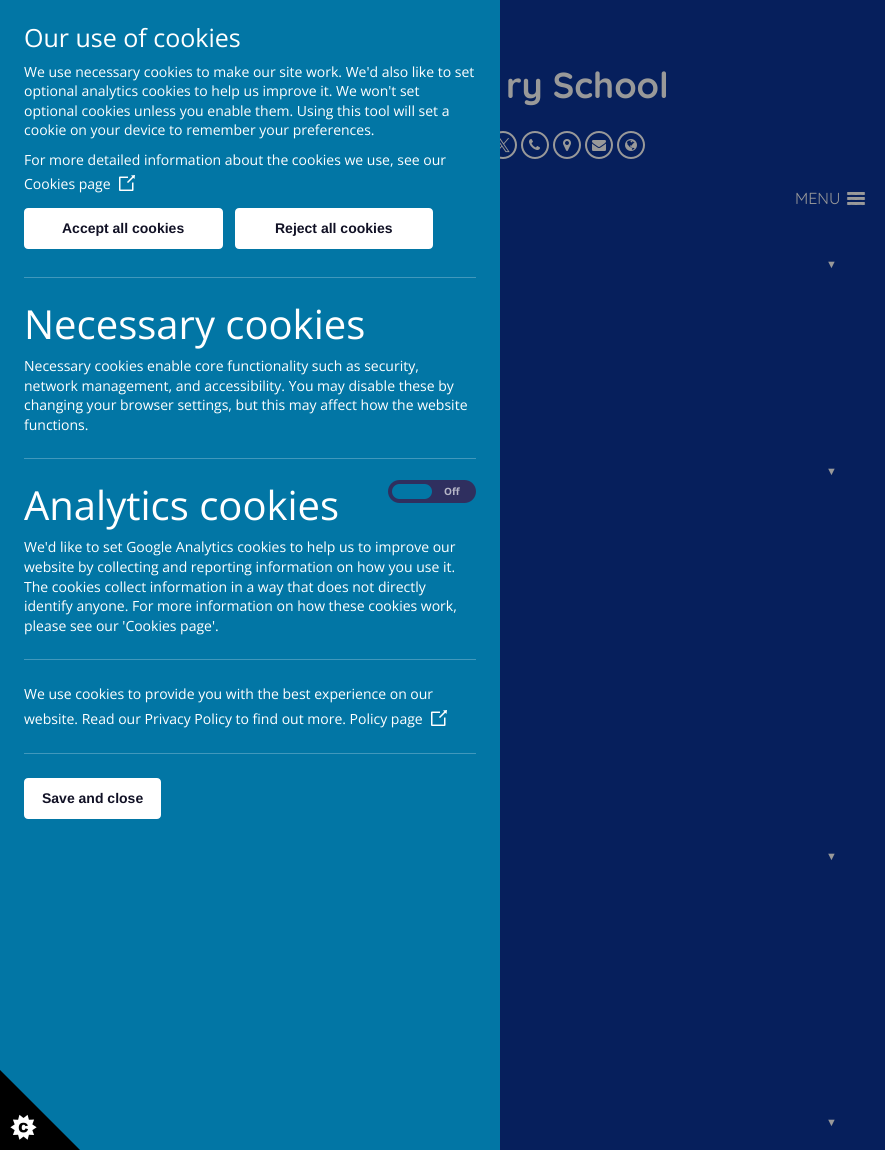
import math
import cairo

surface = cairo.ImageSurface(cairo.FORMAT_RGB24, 885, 1150)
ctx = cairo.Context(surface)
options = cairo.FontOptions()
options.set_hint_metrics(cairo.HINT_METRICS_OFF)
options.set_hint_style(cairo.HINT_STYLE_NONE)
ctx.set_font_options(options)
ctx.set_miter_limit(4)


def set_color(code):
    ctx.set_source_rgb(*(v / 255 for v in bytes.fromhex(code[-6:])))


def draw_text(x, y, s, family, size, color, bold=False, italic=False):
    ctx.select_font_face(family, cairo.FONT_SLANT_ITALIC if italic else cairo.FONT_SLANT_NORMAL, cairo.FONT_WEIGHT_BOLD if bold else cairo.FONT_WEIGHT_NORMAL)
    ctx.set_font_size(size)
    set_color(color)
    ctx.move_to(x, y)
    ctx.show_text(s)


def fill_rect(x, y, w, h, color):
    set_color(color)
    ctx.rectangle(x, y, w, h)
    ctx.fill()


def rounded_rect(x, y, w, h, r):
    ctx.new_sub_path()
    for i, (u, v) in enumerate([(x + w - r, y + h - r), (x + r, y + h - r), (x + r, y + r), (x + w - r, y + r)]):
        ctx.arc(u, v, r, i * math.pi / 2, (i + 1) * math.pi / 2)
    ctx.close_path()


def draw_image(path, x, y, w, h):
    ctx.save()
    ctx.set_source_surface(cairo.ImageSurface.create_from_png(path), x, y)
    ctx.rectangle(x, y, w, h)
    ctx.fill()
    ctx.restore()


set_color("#061f5c")
ctx.paint()
ctx.arc(503, 145, 13, 0, 2 * math.pi)
set_color("#999999")
ctx.stroke()
fill_rect(0, 0, 500, 1150, "#0276a5")
draw_text(24, 47, "Our use of cookies", "Open Sans", 25, "#ffffff")
draw_text(24, 77, "We use necessary cookies to make our site work. We'd also like to set", "Open Sans", 14, "#ffffff")
draw_text(24, 96, "optional analytics cookies to help us improve it. We won't set", "Open Sans", 14, "#ffffff")
draw_text(24, 116, "optional cookies unless you enable them. Using this tool will set a", "Open Sans", 14, "#ffffff")
draw_text(24, 135, "cookie on your device to remember your preferences.", "Open Sans", 14, "#ffffff")
draw_text(24, 165, "For more detailed information about the cookies we use, see our", "Open Sans", 14, "#ffffff")
draw_text(24, 189, "Cookies page", "Open Sans", 14, "#ffffff")
draw_image("assets/img1.png", 119, 175, 16, 16)
rounded_rect(25, 209, 197, 39, 3)
ctx.fill_preserve()
ctx.stroke()
draw_text(62, 233, "Accept all cookies", "Liberation Sans", 14, "#111125", bold=True)
set_color("#ffffff")
rounded_rect(236, 209, 196, 39, 3)
ctx.fill_preserve()
ctx.stroke()
draw_text(275, 233, "Reject all cookies", "Liberation Sans", 14, "#111125", bold=True)
fill_rect(24, 277, 452, 1, "#4198bc")
draw_text(24, 339, "Necessary cookies", "Open Sans", 40, "#ffffff")
draw_text(24, 371, "Necessary cookies enable core functionality such as security,", "Open Sans", 14, "#ffffff")
draw_text(24, 391, "network management, and accessibility. You may disable these by", "Open Sans", 14, "#ffffff")
draw_text(24, 410, "changing your browser settings, but this may affect how the website", "Open Sans", 14, "#ffffff")
draw_text(24, 430, "functions.", "Open Sans", 14, "#ffffff")
fill_rect(24, 458, 452, 1, "#4198bc")
draw_text(24, 520, "Analytics cookies", "Open Sans", 40, "#ffffff")
set_color("#2f2f5f")
rounded_rect(390, 482, 84, 19, 9.5)
ctx.fill_preserve()
ctx.set_line_width(4)
ctx.stroke()
set_color("#0276a5")
rounded_rect(392, 484, 40, 15, 7.5)
ctx.fill()
draw_text(444, 495, "Off", "Open Sans", 10, "#b6b6c7", bold=True)
draw_text(24, 552, "We'd like to set Google Analytics cookies to help us to improve our", "Open Sans", 14, "#ffffff")
draw_text(24, 572, "website by collecting and reporting information on how you use it.", "Open Sans", 14, "#ffffff")
draw_text(24, 592, "The cookies collect information in a way that does not directly", "Open Sans", 14, "#ffffff")
draw_text(24, 611, "identify anyone. For more information on how these cookies work,", "Open Sans", 14, "#ffffff")
draw_text(24, 631, "please see our 'Cookies page'.", "Open Sans", 14, "#ffffff")
fill_rect(24, 659, 452, 1, "#4198bc")
draw_text(24, 699, "We use cookies to provide you with the best experience on our", "Open Sans", 14, "#ffffff")
draw_text(24, 724, "website. Read our Privacy Policy to find out more. Policy page", "Open Sans", 14, "#ffffff")
draw_image("assets/img1.png", 431, 710, 16, 16)
fill_rect(24, 753, 452, 1, "#4198bc")
set_color("#ffffff")
rounded_rect(25, 779, 135, 39, 3)
ctx.fill_preserve()
ctx.set_line_width(2)
ctx.stroke()
draw_text(42, 803, "Save and close", "Liberation Sans", 14, "#111125", bold=True)
draw_image("assets/img2.png", 0, 1070, 80, 80)
draw_text(506, 98, "ry School", "Quicksand", 36, "#999999", bold=True)
draw_image("assets/img3.png", 500, 138, 10, 15)
ctx.arc(535, 145, 13, 0, 2 * math.pi)
ctx.stroke()
draw_image("assets/img4.png", 529, 139, 11, 11)
ctx.arc(567, 145, 13, 0, 2 * math.pi)
ctx.stroke()
draw_image("assets/img5.png", 563, 139, 8, 12)
ctx.arc(599, 145, 13, 0, 2 * math.pi)
ctx.stroke()
draw_image("assets/img6.png", 592, 140, 14, 11)
ctx.arc(631, 145, 13, 0, 2 * math.pi)
ctx.stroke()
draw_image("assets/img7.png", 625, 139, 12, 12)
draw_text(795, 204, "MENU", "Quicksand", 16, "#999999")
ctx.new_path()
ctx.move_to(847, 193.5)
ctx.curve_to(846, 195.5, 850.5, 195, 850.5, 195)
ctx.line_to(861.5, 195)
ctx.curve_to(861.5, 195, 866, 195.5, 865, 193.5)
ctx.curve_to(864, 194.5, 857.5, 194, 856, 194)
ctx.curve_to(854.5, 194, 848, 194.5, 847, 193.5)
ctx.close_path()
ctx.fill()
rounded_rect(847, 192, 18, 2, 1)
ctx.fill()
ctx.new_path()
ctx.move_to(847, 198.5)
ctx.curve_to(846, 200.5, 850.5, 200, 850.5, 200)
ctx.line_to(861.5, 200)
ctx.curve_to(861.5, 200, 866, 200.5, 865, 198.5)
ctx.curve_to(864, 199.5, 857.5, 199, 856, 199)
ctx.curve_to(854.5, 199, 848, 199.5, 847, 198.5)
ctx.close_path()
ctx.fill()
rounded_rect(847, 197, 18, 2, 1)
ctx.fill()
ctx.new_path()
ctx.move_to(847, 203.5)
ctx.curve_to(846, 205.5, 850.5, 205, 850.5, 205)
ctx.line_to(861.5, 205)
ctx.curve_to(861.5, 205, 866, 205.5, 865, 203.5)
ctx.curve_to(864, 204.5, 857.5, 204, 856, 204)
ctx.curve_to(854.5, 204, 848, 204.5, 847, 203.5)
ctx.close_path()
ctx.fill()
rounded_rect(847, 202, 18, 2, 1)
ctx.fill()
draw_text(826, 268, "▼", "Liberation Sans", 11, "#999999")
draw_text(826, 475, "▼", "Liberation Sans", 11, "#999999")
draw_text(826, 860, "▼", "Liberation Sans", 11, "#999999")
draw_text(826, 1126, "▼", "Liberation Sans", 11, "#999999")
surface.write_to_png("output.png")
